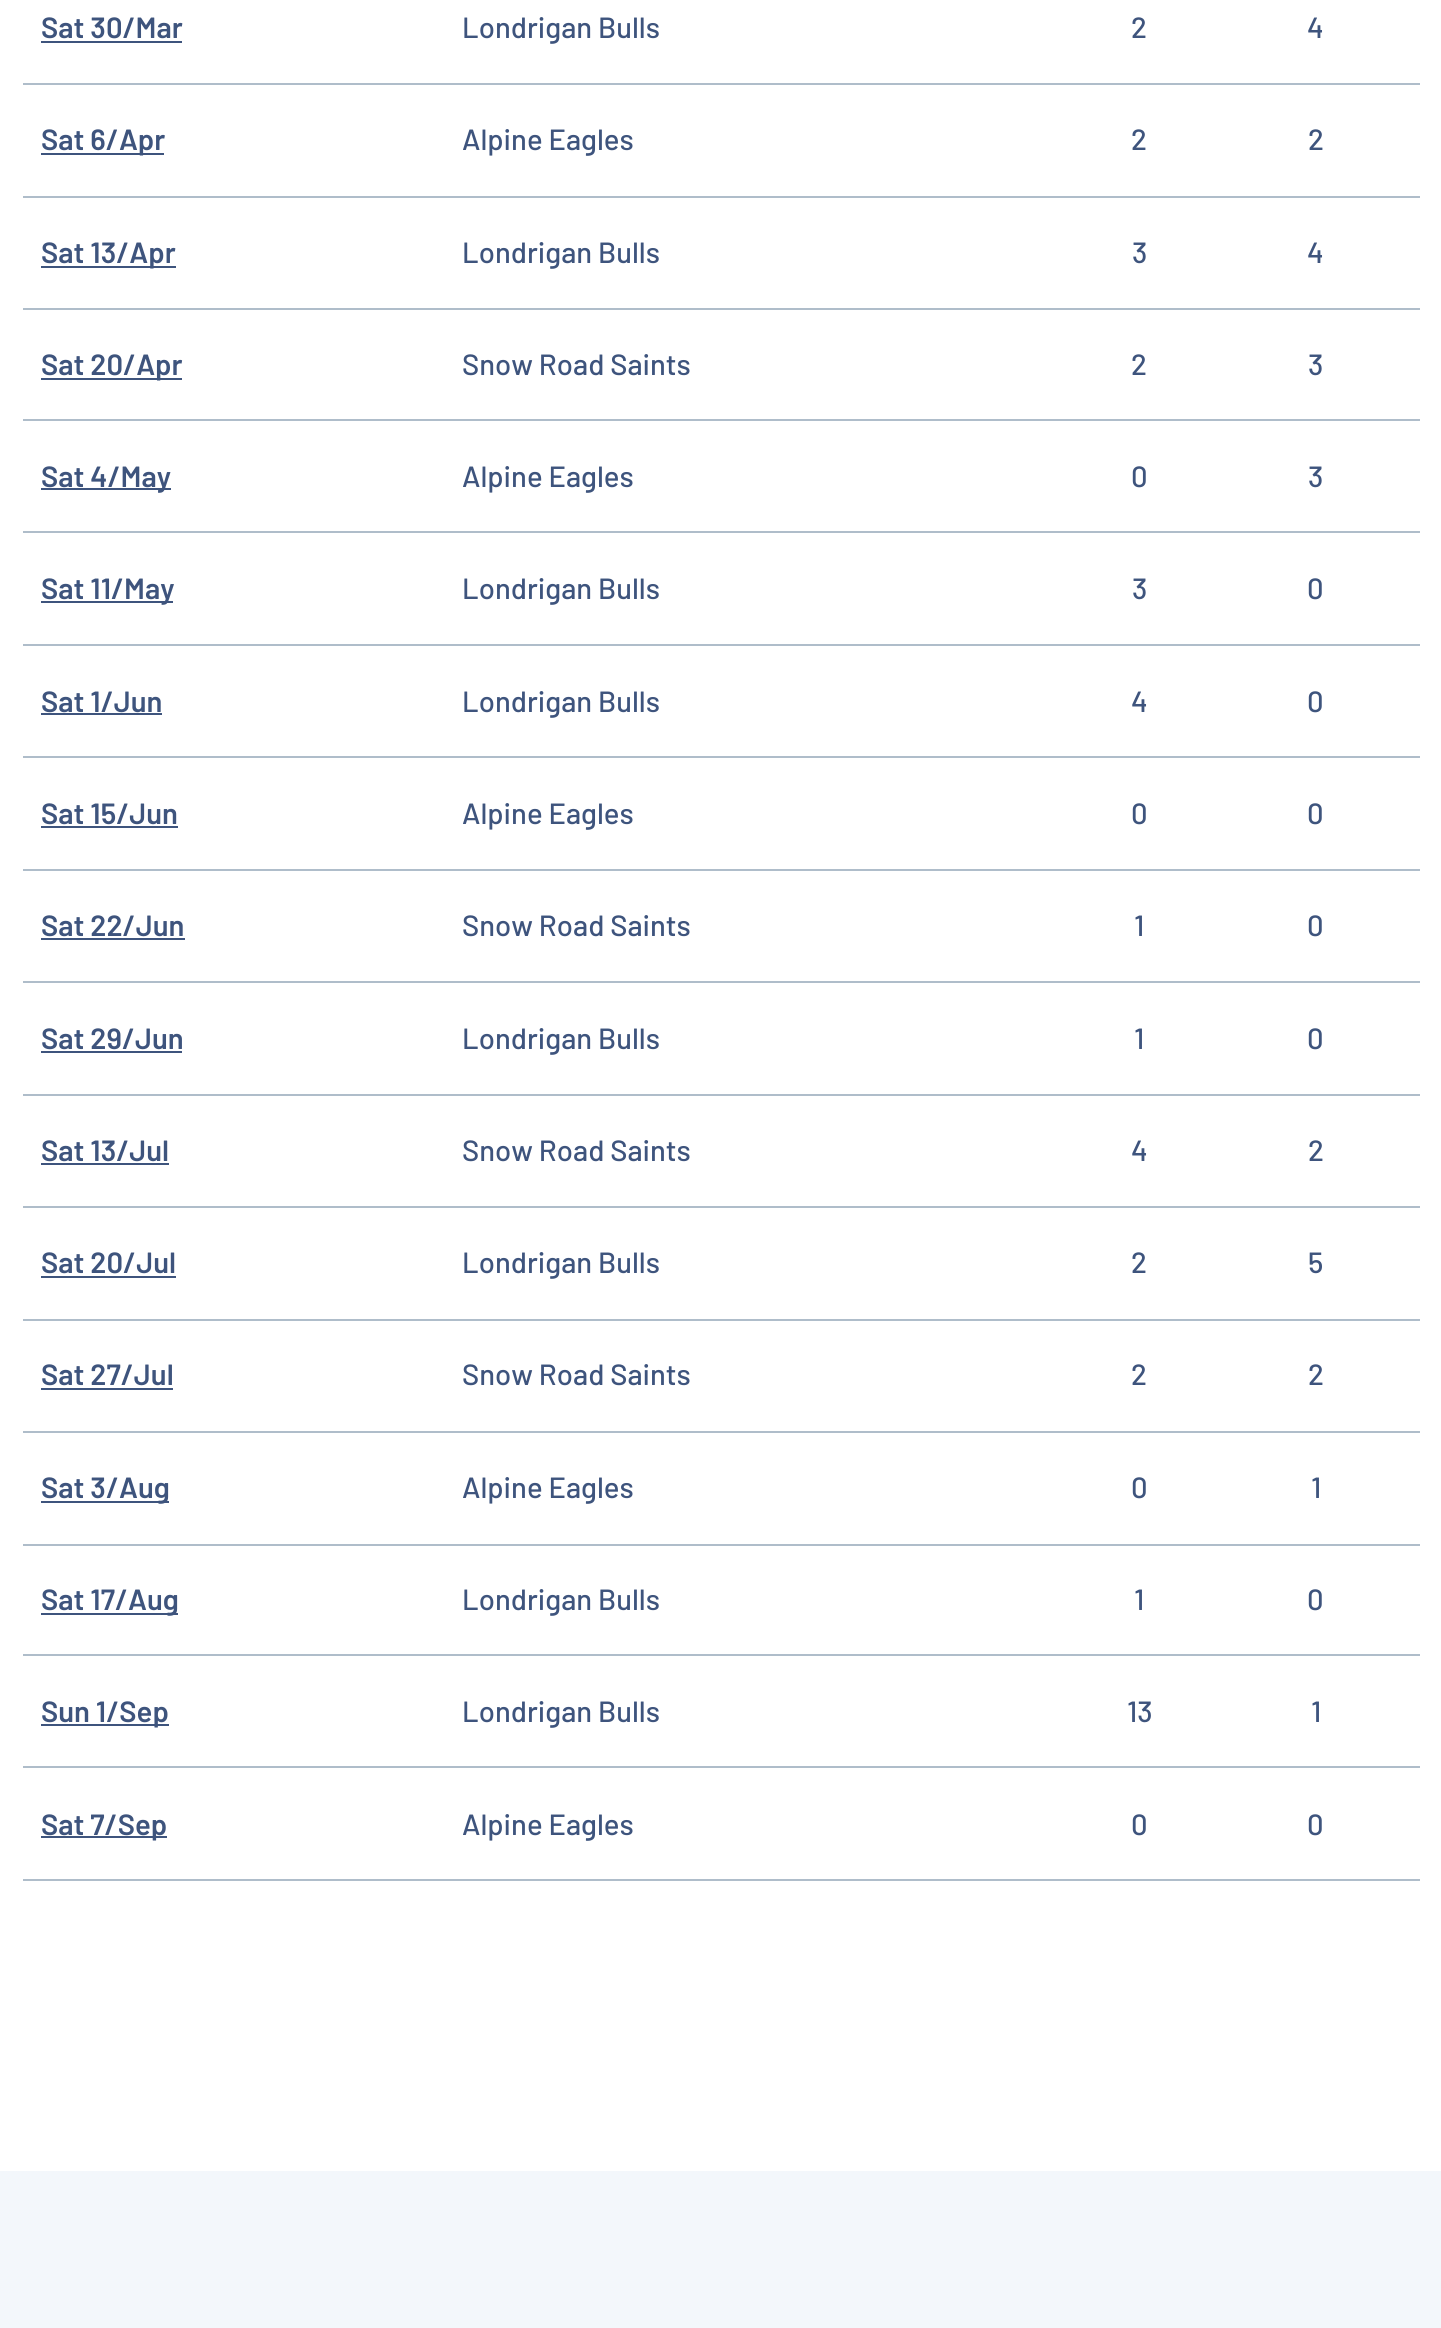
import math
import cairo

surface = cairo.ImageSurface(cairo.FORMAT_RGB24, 1441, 2328)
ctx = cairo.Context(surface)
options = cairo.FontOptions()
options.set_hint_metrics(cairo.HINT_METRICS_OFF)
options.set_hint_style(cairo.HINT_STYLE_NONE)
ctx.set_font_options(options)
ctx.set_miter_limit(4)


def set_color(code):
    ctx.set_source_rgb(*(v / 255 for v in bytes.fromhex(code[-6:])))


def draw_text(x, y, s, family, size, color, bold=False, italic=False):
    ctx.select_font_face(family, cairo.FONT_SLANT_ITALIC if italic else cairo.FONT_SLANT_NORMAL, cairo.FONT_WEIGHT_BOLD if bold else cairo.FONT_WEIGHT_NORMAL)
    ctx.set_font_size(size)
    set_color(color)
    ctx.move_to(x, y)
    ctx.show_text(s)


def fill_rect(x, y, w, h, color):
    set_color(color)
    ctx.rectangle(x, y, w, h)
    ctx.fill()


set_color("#ffffff")
ctx.paint()
draw_text(41, 38, "Sat 30/Mar", "Barlow SemiBold", 29.25, "#3e547d")
fill_rect(41, 41, 141, 2, "#3e547d")
draw_text(462, 38, "Londrigan Bulls", "Barlow Medium", 29.25, "#3e547d")
draw_text(1131, 38, "2", "Barlow Medium", 29.25, "#3e547d")
fill_rect(23, 83, 1397, 2, "#afbdca")
draw_text(1307, 38, "4", "Barlow Medium", 29.25, "#3e547d")
fill_rect(41, 153, 123, 2, "#3e547d")
draw_text(41, 150, "Sat 6/Apr", "Barlow SemiBold", 29.25, "#3e547d")
draw_text(462, 150, "Alpine Eagles", "Barlow Medium", 29.25, "#3e547d")
draw_text(1131, 150, "2", "Barlow Medium", 29.25, "#3e547d")
fill_rect(23, 196, 1397, 2, "#afbdca")
draw_text(1308, 150, "2", "Barlow Medium", 29.25, "#3e547d")
fill_rect(41, 266, 135, 2, "#3e547d")
draw_text(41, 263, "Sat 13/Apr", "Barlow SemiBold", 29.25, "#3e547d")
draw_text(462, 263, "Londrigan Bulls", "Barlow Medium", 29.25, "#3e547d")
draw_text(1132, 263, "3", "Barlow Medium", 29.25, "#3e547d")
fill_rect(23, 308, 1397, 2, "#afbdca")
draw_text(1307, 263, "4", "Barlow Medium", 29.25, "#3e547d")
fill_rect(41, 378, 141, 2, "#3e547d")
draw_text(41, 375, "Sat 20/Apr", "Barlow SemiBold", 29.25, "#3e547d")
draw_text(462, 375, "Snow Road Saints", "Barlow Medium", 29.25, "#3e547d")
draw_text(1131, 375, "2", "Barlow Medium", 29.25, "#3e547d")
fill_rect(23, 419, 1397, 2, "#afbdca")
draw_text(1308, 375, "3", "Barlow Medium", 29.25, "#3e547d")
fill_rect(41, 488, 130, 2, "#3e547d")
draw_text(41, 487, "Sat 4/May", "Barlow SemiBold", 29.25, "#3e547d")
draw_text(462, 487, "Alpine Eagles", "Barlow Medium", 29.25, "#3e547d")
draw_text(1131, 487, "0", "Barlow Medium", 29.25, "#3e547d")
fill_rect(23, 531, 1397, 2, "#afbdca")
draw_text(1308, 487, "3", "Barlow Medium", 29.25, "#3e547d")
fill_rect(41, 601, 132, 2, "#3e547d")
draw_text(41, 599, "Sat 11/May", "Barlow SemiBold", 29.25, "#3e547d")
draw_text(462, 599, "Londrigan Bulls", "Barlow Medium", 29.25, "#3e547d")
draw_text(1132, 599, "3", "Barlow Medium", 29.25, "#3e547d")
fill_rect(23, 644, 1397, 2, "#afbdca")
draw_text(1307, 599, "0", "Barlow Medium", 29.25, "#3e547d")
draw_text(41, 712, "Sat 1/Jun", "Barlow SemiBold", 29.25, "#3e547d")
fill_rect(41, 713, 121, 2, "#3e547d")
draw_text(462, 712, "Londrigan Bulls", "Barlow Medium", 29.25, "#3e547d")
draw_text(1131, 712, "4", "Barlow Medium", 29.25, "#3e547d")
fill_rect(23, 756, 1397, 2, "#afbdca")
draw_text(1307, 712, "0", "Barlow Medium", 29.25, "#3e547d")
draw_text(41, 824, "Sat 15/Jun", "Barlow SemiBold", 29.25, "#3e547d")
fill_rect(41, 826, 137, 2, "#3e547d")
draw_text(462, 824, "Alpine Eagles", "Barlow Medium", 29.25, "#3e547d")
draw_text(1131, 824, "0", "Barlow Medium", 29.25, "#3e547d")
fill_rect(23, 869, 1397, 2, "#afbdca")
draw_text(1307, 824, "0", "Barlow Medium", 29.25, "#3e547d")
draw_text(41, 936, "Sat 22/Jun", "Barlow SemiBold", 29.25, "#3e547d")
fill_rect(41, 938, 144, 2, "#3e547d")
draw_text(462, 936, "Snow Road Saints", "Barlow Medium", 29.25, "#3e547d")
draw_text(1134, 936, "1", "Barlow Medium", 29.25, "#3e547d")
fill_rect(23, 981, 1397, 2, "#afbdca")
draw_text(1307, 936, "0", "Barlow Medium", 29.25, "#3e547d")
draw_text(41, 1049, "Sat 29/Jun", "Barlow SemiBold", 29.25, "#3e547d")
fill_rect(41, 1051, 141, 2, "#3e547d")
draw_text(462, 1049, "Londrigan Bulls", "Barlow Medium", 29.25, "#3e547d")
draw_text(1134, 1049, "1", "Barlow Medium", 29.25, "#3e547d")
fill_rect(23, 1094, 1397, 2, "#afbdca")
draw_text(1307, 1049, "0", "Barlow Medium", 29.25, "#3e547d")
draw_text(41, 1161, "Sat 13/Jul", "Barlow SemiBold", 29.25, "#3e547d")
fill_rect(41, 1163, 128, 2, "#3e547d")
draw_text(462, 1161, "Snow Road Saints", "Barlow Medium", 29.25, "#3e547d")
draw_text(1131, 1161, "4", "Barlow Medium", 29.25, "#3e547d")
fill_rect(23, 1206, 1397, 2, "#afbdca")
draw_text(1308, 1161, "2", "Barlow Medium", 29.25, "#3e547d")
draw_text(41, 1273, "Sat 20/Jul", "Barlow SemiBold", 29.25, "#3e547d")
fill_rect(41, 1276, 135, 2, "#3e547d")
draw_text(462, 1273, "Londrigan Bulls", "Barlow Medium", 29.25, "#3e547d")
draw_text(1131, 1273, "2", "Barlow Medium", 29.25, "#3e547d")
fill_rect(23, 1319, 1397, 2, "#afbdca")
draw_text(1308, 1273, "5", "Barlow Medium", 29.25, "#3e547d")
draw_text(41, 1385, "Sat 27/Jul", "Barlow SemiBold", 29.25, "#3e547d")
fill_rect(41, 1388, 132, 2, "#3e547d")
draw_text(462, 1385, "Snow Road Saints", "Barlow Medium", 29.25, "#3e547d")
draw_text(1131, 1385, "2", "Barlow Medium", 29.25, "#3e547d")
fill_rect(23, 1431, 1397, 2, "#afbdca")
draw_text(1308, 1385, "2", "Barlow Medium", 29.25, "#3e547d")
fill_rect(41, 1501, 128, 2, "#3e547d")
draw_text(41, 1498, "Sat 3/Aug", "Barlow SemiBold", 29.25, "#3e547d")
draw_text(462, 1498, "Alpine Eagles", "Barlow Medium", 29.25, "#3e547d")
draw_text(1131, 1498, "0", "Barlow Medium", 29.25, "#3e547d")
fill_rect(23, 1544, 1397, 2, "#afbdca")
draw_text(1311, 1498, "1", "Barlow Medium", 29.25, "#3e547d")
fill_rect(41, 1613, 137, 2, "#3e547d")
draw_text(41, 1610, "Sat 17/Aug", "Barlow SemiBold", 29.25, "#3e547d")
draw_text(462, 1610, "Londrigan Bulls", "Barlow Medium", 29.25, "#3e547d")
draw_text(1134, 1610, "1", "Barlow Medium", 29.25, "#3e547d")
fill_rect(23, 1654, 1397, 2, "#afbdca")
draw_text(1307, 1610, "0", "Barlow Medium", 29.25, "#3e547d")
fill_rect(41, 1724, 128, 2, "#3e547d")
draw_text(41, 1722, "Sun 1/Sep", "Barlow SemiBold", 29.25, "#3e547d")
draw_text(462, 1722, "Londrigan Bulls", "Barlow Medium", 29.25, "#3e547d")
draw_text(1127, 1722, "13", "Barlow Medium", 29.25, "#3e547d")
fill_rect(23, 1766, 1397, 2, "#afbdca")
draw_text(1311, 1722, "1", "Barlow Medium", 29.25, "#3e547d")
fill_rect(41, 1836, 126, 2, "#3e547d")
draw_text(41, 1835, "Sat 7/Sep", "Barlow SemiBold", 29.25, "#3e547d")
draw_text(462, 1835, "Alpine Eagles", "Barlow Medium", 29.25, "#3e547d")
draw_text(1131, 1835, "0", "Barlow Medium", 29.25, "#3e547d")
fill_rect(23, 1879, 1397, 2, "#afbdca")
draw_text(1307, 1835, "0", "Barlow Medium", 29.25, "#3e547d")
fill_rect(0, 2171, 1441, 157, "#f3f7fb")
surface.write_to_png("output.png")
